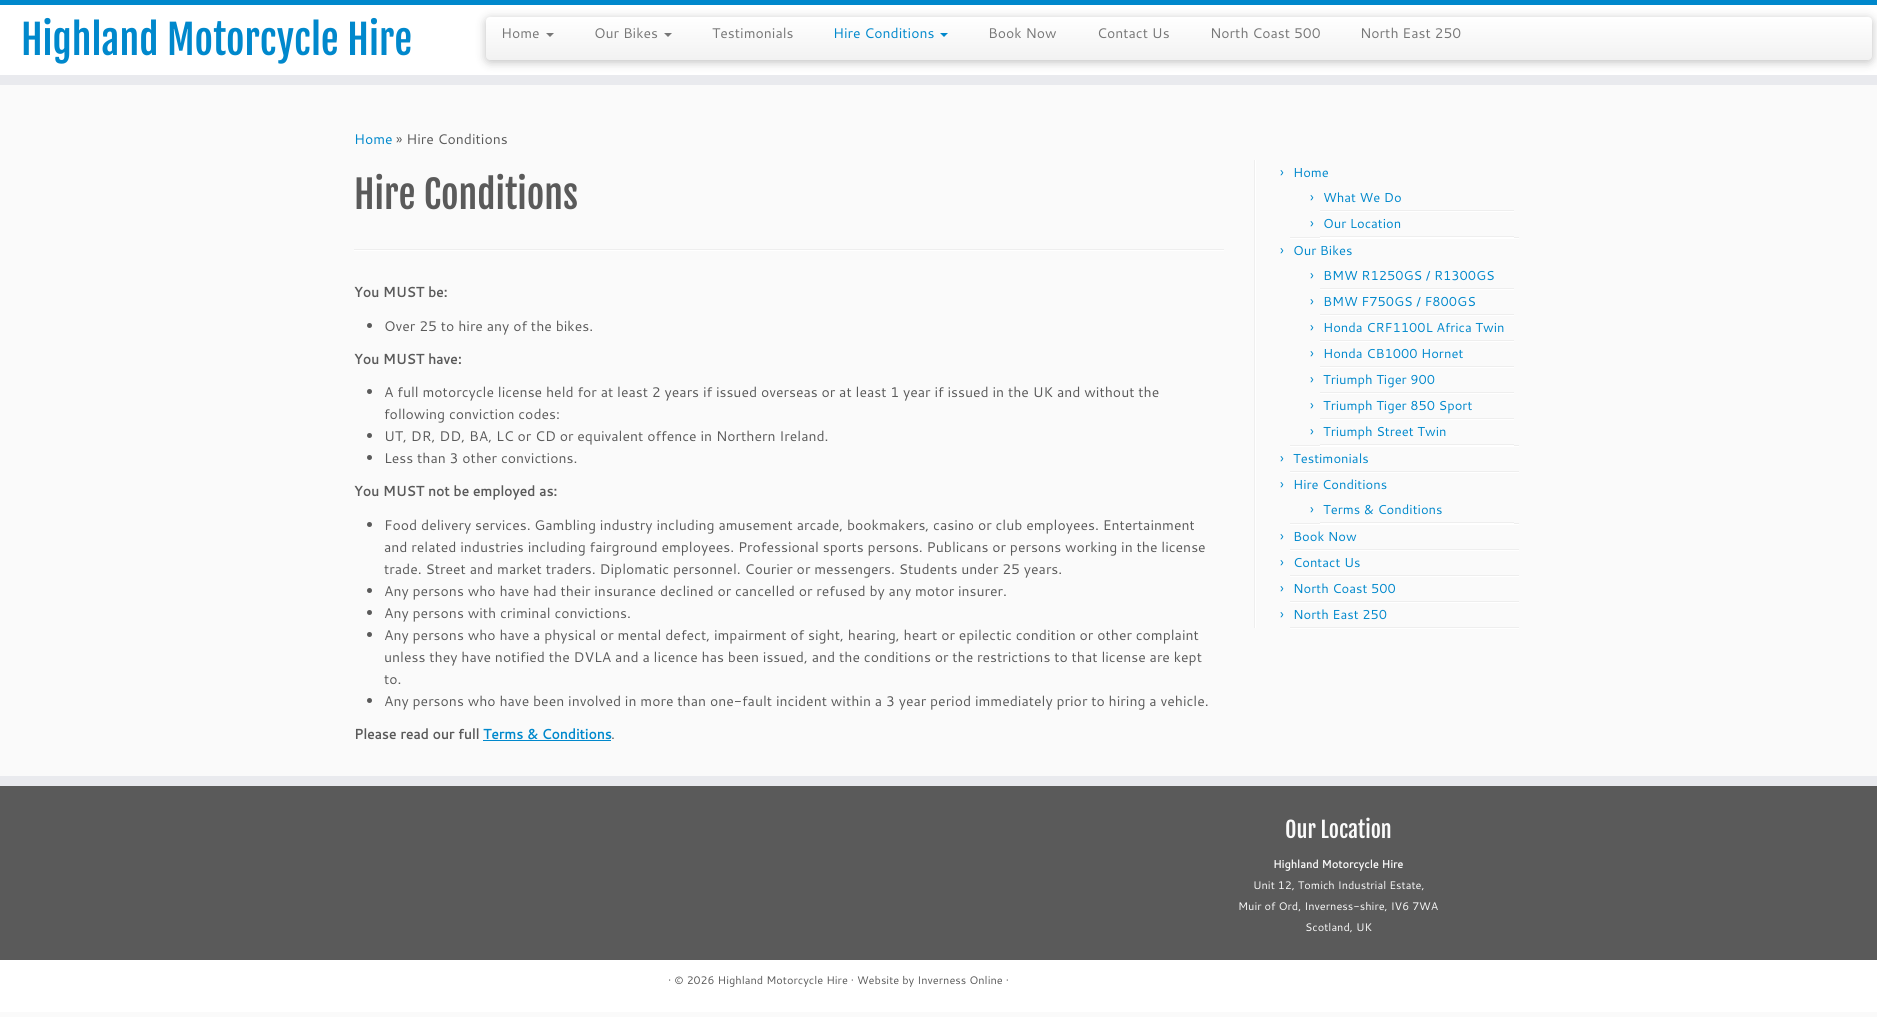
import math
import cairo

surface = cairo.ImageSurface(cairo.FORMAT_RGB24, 1877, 1017)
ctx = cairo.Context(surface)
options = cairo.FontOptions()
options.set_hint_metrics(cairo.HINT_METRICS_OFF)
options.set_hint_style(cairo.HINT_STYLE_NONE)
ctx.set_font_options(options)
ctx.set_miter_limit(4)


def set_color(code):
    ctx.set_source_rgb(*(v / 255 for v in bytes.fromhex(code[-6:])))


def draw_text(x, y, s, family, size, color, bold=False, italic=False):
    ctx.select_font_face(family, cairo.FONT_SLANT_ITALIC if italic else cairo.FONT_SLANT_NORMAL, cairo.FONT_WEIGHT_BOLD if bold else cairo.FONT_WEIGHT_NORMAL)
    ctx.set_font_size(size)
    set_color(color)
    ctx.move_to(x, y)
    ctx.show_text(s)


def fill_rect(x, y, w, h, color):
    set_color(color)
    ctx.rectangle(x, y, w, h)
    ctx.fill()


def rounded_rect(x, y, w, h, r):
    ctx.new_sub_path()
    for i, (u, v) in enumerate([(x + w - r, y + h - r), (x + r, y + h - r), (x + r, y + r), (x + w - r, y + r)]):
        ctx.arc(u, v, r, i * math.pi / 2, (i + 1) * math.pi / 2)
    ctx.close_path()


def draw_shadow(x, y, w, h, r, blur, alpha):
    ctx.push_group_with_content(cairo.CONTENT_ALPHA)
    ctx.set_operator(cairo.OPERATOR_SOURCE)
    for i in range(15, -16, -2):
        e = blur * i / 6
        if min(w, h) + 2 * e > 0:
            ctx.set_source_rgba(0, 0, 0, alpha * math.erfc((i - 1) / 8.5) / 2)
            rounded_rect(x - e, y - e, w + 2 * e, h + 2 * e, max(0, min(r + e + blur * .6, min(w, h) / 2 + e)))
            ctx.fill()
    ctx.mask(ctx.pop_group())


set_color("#fafafa")
ctx.paint()
fill_rect(0, 5, 1877, 70, "#ffffff")
fill_rect(0, 0, 1877, 5, "#0088cc")
fill_rect(0, 75, 1877, 10, "#e9eaee")
draw_text(21, 55, "Highland Motorcycle Hire", "Fjalla One", 40, "#0088cc")
set_color("#000000")
draw_shadow(486, 19, 1386, 43, 4, 5, 0.25)
gradient = cairo.LinearGradient(1179, 17, 1179, 60)
gradient.add_color_stop_rgba(0, 1, 1, 1, 1)
gradient.add_color_stop_rgba(1, 0.949, 0.949, 0.949, 1)
ctx.set_source(gradient)
rounded_rect(486, 17, 1386, 43, 4)
ctx.fill()
draw_text(501, 38, "Home", "Cantarell", 14, "#777777")
ctx.new_path()
ctx.move_to(546, 33)
ctx.line_to(554, 33)
ctx.line_to(550, 37)
ctx.close_path()
ctx.fill()
draw_text(594, 38, "Our Bikes", "Cantarell", 14, "#777777")
ctx.new_path()
ctx.move_to(664, 33)
ctx.line_to(672, 33)
ctx.line_to(668, 37)
ctx.close_path()
ctx.fill()
draw_text(712, 38, "Testimonials", "Cantarell", 14, "#777777")
draw_text(833, 38, "Hire Conditions", "Cantarell", 14, "#0088cc")
ctx.new_path()
ctx.move_to(940, 33)
ctx.line_to(948, 33)
ctx.line_to(944, 37)
ctx.close_path()
ctx.fill()
draw_text(988, 38, "Book Now", "Cantarell", 14, "#777777")
draw_text(1097, 38, "Contact Us", "Cantarell", 14, "#777777")
draw_text(1210, 38, "North Coast 500", "Cantarell", 14, "#777777")
draw_text(1360, 38, "North East 250", "Cantarell", 14, "#777777")
draw_text(354, 144, "Home", "Cantarell", 14, "#0088cc")
draw_text(396, 144, "» Hire Conditions", "Cantarell", 14, "#5a5a5a")
draw_text(354, 209, "Hire Conditions", "Fjalla One", 38, "#5a5a5a")
fill_rect(354, 249, 870, 1, "#eeeeee")
fill_rect(354, 250, 870, 1, "#ffffff")
draw_text(354, 297, "You MUST be:", "Cantarell", 14, "#5a5a5a", bold=True)
ctx.new_path()
ctx.arc(369.5, 325.5, 2.5, 0, 2 * math.pi)
ctx.fill()
draw_text(384, 331, "Over 25 to hire any of the bikes.", "Cantarell", 14, "#5a5a5a")
draw_text(354, 364, "You MUST have:", "Cantarell", 14, "#5a5a5a", bold=True)
ctx.new_path()
ctx.arc(369.5, 391.5, 2.5, 0, 2 * math.pi)
ctx.fill()
draw_text(384, 397, "A full motorcycle license held for at least 2 years if issued overseas or at least 1 year if issued in the UK and without the", "Cantarell", 14, "#5a5a5a")
draw_text(384, 419, "following conviction codes:", "Cantarell", 14, "#5a5a5a")
ctx.new_path()
ctx.arc(369.5, 435.5, 2.5, 0, 2 * math.pi)
ctx.fill()
draw_text(384, 441, "UT, DR, DD, BA, LC or CD or equivalent offence in Northern Ireland.", "Cantarell", 14, "#5a5a5a")
ctx.new_path()
ctx.arc(369.5, 457.5, 2.5, 0, 2 * math.pi)
ctx.fill()
draw_text(384, 463, "Less than 3 other convictions.", "Cantarell", 14, "#5a5a5a")
draw_text(354, 496, "You MUST not be employed as:", "Cantarell", 14, "#5a5a5a", bold=True)
ctx.new_path()
ctx.arc(369.5, 524.5, 2.5, 0, 2 * math.pi)
ctx.fill()
draw_text(384, 530, "Food delivery services. Gambling industry including amusement arcade, bookmakers, casino or club employees. Entertainment", "Cantarell", 14, "#5a5a5a")
draw_text(384, 552, "and related industries including fairground employees. Professional sports persons. Publicans or persons working in the license", "Cantarell", 14, "#5a5a5a")
draw_text(384, 574, "trade. Street and market traders. Diplomatic personnel. Courier or messengers. Students under 25 years.", "Cantarell", 14, "#5a5a5a")
ctx.new_path()
ctx.arc(369.5, 590.5, 2.5, 0, 2 * math.pi)
ctx.fill()
draw_text(384, 596, "Any persons who have had their insurance declined or cancelled or refused by any motor insurer.", "Cantarell", 14, "#5a5a5a")
ctx.new_path()
ctx.arc(369.5, 612.5, 2.5, 0, 2 * math.pi)
ctx.fill()
draw_text(384, 618, "Any persons with criminal convictions.", "Cantarell", 14, "#5a5a5a")
ctx.new_path()
ctx.arc(369.5, 634.5, 2.5, 0, 2 * math.pi)
ctx.fill()
draw_text(384, 640, "Any persons who have a physical or mental defect, impairment of sight, hearing, heart or epilectic condition or other complaint", "Cantarell", 14, "#5a5a5a")
draw_text(384, 662, "unless they have notified the DVLA and a licence has been issued, and the conditions or the restrictions to that license are kept", "Cantarell", 14, "#5a5a5a")
draw_text(384, 684, "to.", "Cantarell", 14, "#5a5a5a")
ctx.new_path()
ctx.arc(369.5, 700.5, 2.5, 0, 2 * math.pi)
ctx.fill()
draw_text(384, 706, "Any persons who have been involved in more than one-fault incident within a 3 year period immediately prior to hiring a vehicle.", "Cantarell", 14, "#5a5a5a")
draw_text(354, 739, "Please read our full", "Cantarell", 14, "#5a5a5a", bold=True)
draw_text(483, 739, "Terms & Conditions", "Cantarell", 14, "#0088cc", bold=True)
fill_rect(483, 740, 128, 1, "#0088cc")
draw_text(611, 739, ".", "Cantarell", 14, "#5a5a5a")
fill_rect(1254, 160, 1, 468, "#eeeeee")
fill_rect(1255, 160, 1, 468, "#ffffff")
fill_rect(1290, 237, 229, 1, "#eeeeee")
draw_text(1280, 177, "›", "Cantarell", 14, "#0088cc")
draw_text(1293, 177, "Home", "Cantarell", 13, "#0088cc")
fill_rect(1320, 210, 194, 1, "#eeeeee")
draw_text(1310, 202, "›", "Cantarell", 14, "#0088cc")
draw_text(1323, 202, "What We Do", "Cantarell", 13, "#0088cc")
fill_rect(1320, 211, 194, 1, "#ffffff")
fill_rect(1320, 236, 194, 1, "#eeeeee")
draw_text(1310, 228, "›", "Cantarell", 14, "#0088cc")
draw_text(1323, 228, "Our Location", "Cantarell", 13, "#0088cc")
fill_rect(1320, 237, 194, 1, "#ffffff")
fill_rect(1290, 238, 229, 1, "#ffffff")
fill_rect(1290, 445, 229, 1, "#eeeeee")
draw_text(1280, 255, "›", "Cantarell", 14, "#0088cc")
draw_text(1293, 255, "Our Bikes", "Cantarell", 13, "#0088cc")
fill_rect(1320, 288, 194, 1, "#eeeeee")
draw_text(1310, 280, "›", "Cantarell", 14, "#0088cc")
draw_text(1323, 280, "BMW R1250GS / R1300GS", "Cantarell", 13, "#0088cc")
fill_rect(1320, 289, 194, 1, "#ffffff")
fill_rect(1320, 314, 194, 1, "#eeeeee")
draw_text(1310, 306, "›", "Cantarell", 14, "#0088cc")
draw_text(1323, 306, "BMW F750GS / F800GS", "Cantarell", 13, "#0088cc")
fill_rect(1320, 315, 194, 1, "#ffffff")
fill_rect(1320, 340, 194, 1, "#eeeeee")
draw_text(1310, 332, "›", "Cantarell", 14, "#0088cc")
draw_text(1323, 332, "Honda CRF1100L Africa Twin", "Cantarell", 13, "#0088cc")
fill_rect(1320, 341, 194, 1, "#ffffff")
fill_rect(1320, 366, 194, 1, "#eeeeee")
draw_text(1310, 358, "›", "Cantarell", 14, "#0088cc")
draw_text(1323, 358, "Honda CB1000 Hornet", "Cantarell", 13, "#0088cc")
fill_rect(1320, 367, 194, 1, "#ffffff")
fill_rect(1320, 392, 194, 1, "#eeeeee")
draw_text(1310, 384, "›", "Cantarell", 14, "#0088cc")
draw_text(1323, 384, "Triumph Tiger 900", "Cantarell", 13, "#0088cc")
fill_rect(1320, 393, 194, 1, "#ffffff")
fill_rect(1320, 418, 194, 1, "#eeeeee")
draw_text(1310, 410, "›", "Cantarell", 14, "#0088cc")
draw_text(1323, 410, "Triumph Tiger 850 Sport", "Cantarell", 13, "#0088cc")
fill_rect(1320, 419, 194, 1, "#ffffff")
fill_rect(1320, 444, 194, 1, "#eeeeee")
draw_text(1310, 436, "›", "Cantarell", 14, "#0088cc")
draw_text(1323, 436, "Triumph Street Twin", "Cantarell", 13, "#0088cc")
fill_rect(1320, 445, 194, 1, "#ffffff")
fill_rect(1290, 446, 229, 1, "#ffffff")
fill_rect(1290, 471, 229, 1, "#eeeeee")
draw_text(1280, 463, "›", "Cantarell", 14, "#0088cc")
draw_text(1293, 463, "Testimonials", "Cantarell", 13, "#0088cc")
fill_rect(1290, 472, 229, 1, "#ffffff")
fill_rect(1290, 523, 229, 1, "#eeeeee")
draw_text(1280, 489, "›", "Cantarell", 14, "#0088cc")
draw_text(1293, 489, "Hire Conditions", "Cantarell", 13, "#0088cc")
fill_rect(1320, 522, 194, 1, "#eeeeee")
draw_text(1310, 514, "›", "Cantarell", 14, "#0088cc")
draw_text(1323, 514, "Terms & Conditions", "Cantarell", 13, "#0088cc")
fill_rect(1320, 523, 194, 1, "#ffffff")
fill_rect(1290, 524, 229, 1, "#ffffff")
fill_rect(1290, 549, 229, 1, "#eeeeee")
draw_text(1280, 541, "›", "Cantarell", 14, "#0088cc")
draw_text(1293, 541, "Book Now", "Cantarell", 13, "#0088cc")
fill_rect(1290, 550, 229, 1, "#ffffff")
fill_rect(1290, 575, 229, 1, "#eeeeee")
draw_text(1280, 567, "›", "Cantarell", 14, "#0088cc")
draw_text(1293, 567, "Contact Us", "Cantarell", 13, "#0088cc")
fill_rect(1290, 576, 229, 1, "#ffffff")
fill_rect(1290, 601, 229, 1, "#eeeeee")
draw_text(1280, 593, "›", "Cantarell", 14, "#0088cc")
draw_text(1293, 593, "North Coast 500", "Cantarell", 13, "#0088cc")
fill_rect(1290, 602, 229, 1, "#ffffff")
fill_rect(1290, 627, 229, 1, "#eeeeee")
draw_text(1280, 619, "›", "Cantarell", 14, "#0088cc")
draw_text(1293, 619, "North East 250", "Cantarell", 13, "#0088cc")
fill_rect(1290, 628, 229, 1, "#ffffff")
fill_rect(0, 786, 1877, 174, "#5a5a5a")
fill_rect(0, 776, 1877, 10, "#e9eaee")
draw_text(1285, 838, "Our Location", "Fjalla One", 22, "#fafafa")
draw_text(1273, 868, "Highland Motorcycle Hire", "Cantarell", 11, "#fafafa", bold=True)
draw_text(1253, 889, "Unit 12, Tomich Industrial Estate,", "Cantarell", 11, "#fafafa")
draw_text(1238, 910, "Muir of Ord, Inverness-shire, IV6 7WA", "Cantarell", 11, "#fafafa")
draw_text(1305, 931, "Scotland, UK", "Cantarell", 11, "#fafafa")
fill_rect(0, 960, 1877, 52, "#ffffff")
draw_text(668, 984, "· © 2026 Highland Motorcycle Hire · Website by Inverness Online ·", "Cantarell", 11, "#5a5a5a")
surface.write_to_png("output.png")
